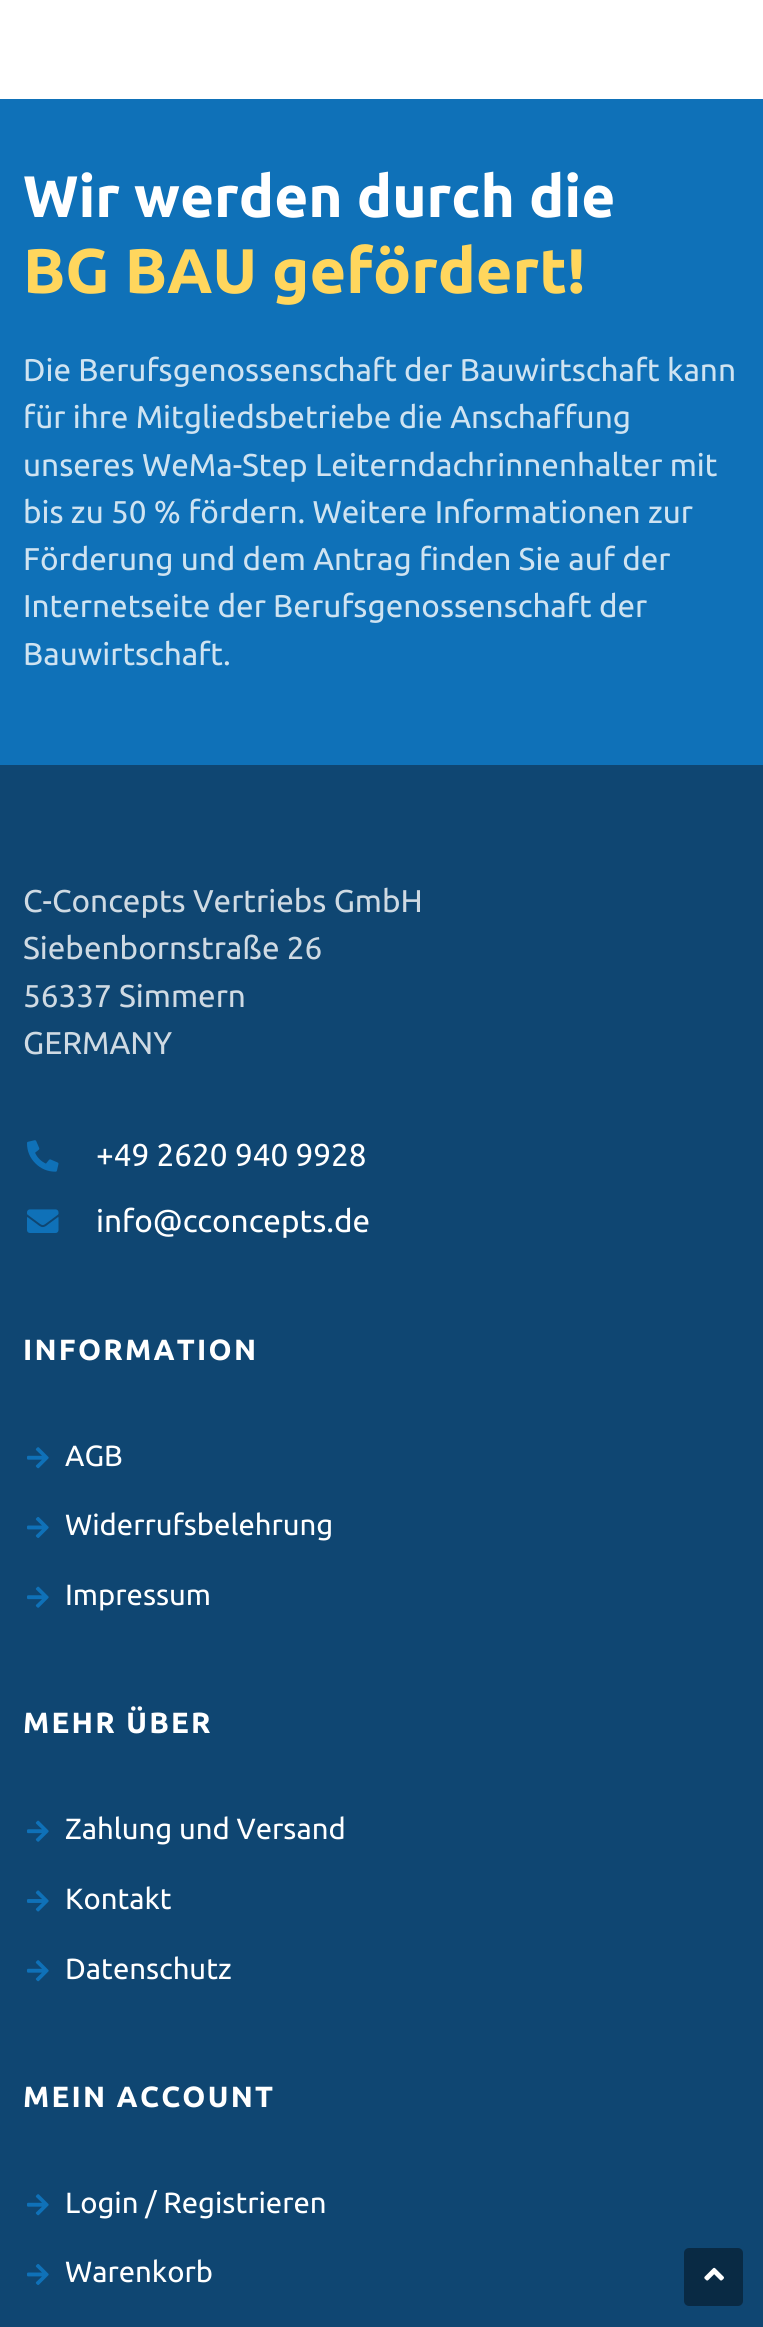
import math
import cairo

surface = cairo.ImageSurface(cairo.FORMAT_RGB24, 763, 2327)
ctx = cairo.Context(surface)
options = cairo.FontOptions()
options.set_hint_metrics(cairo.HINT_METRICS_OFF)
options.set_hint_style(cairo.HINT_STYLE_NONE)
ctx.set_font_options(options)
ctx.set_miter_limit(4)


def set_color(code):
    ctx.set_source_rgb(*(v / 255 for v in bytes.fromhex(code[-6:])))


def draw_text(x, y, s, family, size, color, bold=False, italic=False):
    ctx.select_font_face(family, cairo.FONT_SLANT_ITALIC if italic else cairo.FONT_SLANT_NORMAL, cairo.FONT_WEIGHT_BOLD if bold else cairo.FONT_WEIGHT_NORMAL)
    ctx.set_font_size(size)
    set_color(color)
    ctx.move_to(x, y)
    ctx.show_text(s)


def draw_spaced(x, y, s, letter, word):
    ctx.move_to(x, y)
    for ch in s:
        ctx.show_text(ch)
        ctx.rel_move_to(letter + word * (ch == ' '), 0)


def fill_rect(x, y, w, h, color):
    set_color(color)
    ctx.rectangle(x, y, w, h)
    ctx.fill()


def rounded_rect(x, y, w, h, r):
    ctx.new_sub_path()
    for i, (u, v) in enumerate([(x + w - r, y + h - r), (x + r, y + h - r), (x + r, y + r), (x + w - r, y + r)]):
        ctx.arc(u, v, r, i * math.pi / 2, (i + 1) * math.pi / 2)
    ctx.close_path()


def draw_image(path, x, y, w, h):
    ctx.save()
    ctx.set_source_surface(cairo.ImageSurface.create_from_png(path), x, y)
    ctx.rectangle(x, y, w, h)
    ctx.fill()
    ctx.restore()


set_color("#ffffff")
ctx.paint()
fill_rect(0, 99, 763, 666, "#0f71b8")
draw_text(23, 217, "Wir werden durch die", "Ubuntu", 58.5, "#ffffff", bold=True)
draw_text(23, 293, "BG BAU gefördert!", "Ubuntu", 63, "#ffd65d", bold=True)
draw_text(23, 381, "Die Berufsgenossenschaft der Bauwirtschaft kann", "Ubuntu", 31.5, "#cfe3f1")
draw_text(23, 428, "für ihre Mitgliedsbetriebe die Anschaffung", "Ubuntu", 31.5, "#cfe3f1")
draw_text(23, 476, "unseres WeMa-Step Leiterndachrinnenhalter mit", "Ubuntu", 31.5, "#cfe3f1")
draw_text(23, 523, "bis zu 50 % fördern. Weitere Informationen zur", "Ubuntu", 31.5, "#cfe3f1")
draw_text(23, 570, "Förderung und dem Antrag finden Sie auf der", "Ubuntu", 31.5, "#cfe3f1")
draw_text(23, 617, "Internetseite der Berufsgenossenschaft der", "Ubuntu", 31.5, "#cfe3f1")
draw_text(23, 665, "Bauwirtschaft.", "Ubuntu", 31.5, "#cfe3f1")
fill_rect(0, 765, 763, 1562, "#0f4672")
draw_text(23, 912, "C-Concepts Vertriebs GmbH", "Ubuntu", 31.5, "#cfdae3")
draw_text(23, 959, "Siebenbornstraße 26", "Ubuntu", 31.5, "#cfdae3")
draw_text(23, 1007, "56337 Simmern", "Ubuntu", 31.5, "#cfdae3")
draw_text(23, 1054, "GERMANY", "Ubuntu", 31.5, "#cfdae3")
draw_image("assets/img1.png", 27, 1140, 32, 32)
draw_text(96, 1166, "+49 2620 940 9928", "Ubuntu", 31.5, "#ffffff")
draw_image("assets/img2.png", 27, 1209, 32, 24)
draw_text(96, 1232, "info@cconcepts.de", "Ubuntu", 31.5, "#ffffff")
ctx.select_font_face("Ubuntu", cairo.FONT_SLANT_NORMAL, cairo.FONT_WEIGHT_BOLD)
ctx.set_font_size(29.25)
draw_spaced(23, 1360, "INFORMATION", 2.25, 0)
draw_image("assets/img3.png", 27, 1447, 22, 22)
draw_text(65, 1466, "AGB", "Ubuntu", 29.25, "#ffffff")
draw_image("assets/img4.png", 27, 1517, 22, 21)
draw_text(65, 1535, "Widerrufsbelehrung", "Ubuntu", 29.25, "#ffffff")
draw_image("assets/img5.png", 27, 1586, 22, 22)
draw_text(65, 1605, "Impressum", "Ubuntu", 29.25, "#ffffff")
ctx.select_font_face("Ubuntu", cairo.FONT_SLANT_NORMAL, cairo.FONT_WEIGHT_BOLD)
draw_spaced(23, 1733, "MEHR ÜBER", 2.25, 0)
draw_image("assets/img5.png", 27, 1820, 22, 22)
draw_text(65, 1839, "Zahlung und Versand", "Ubuntu", 29.25, "#ffffff")
draw_image("assets/img6.png", 27, 1890, 22, 22)
draw_text(65, 1909, "Kontakt", "Ubuntu", 29.25, "#ffffff")
draw_image("assets/img3.png", 27, 1960, 22, 22)
draw_text(65, 1979, "Datenschutz", "Ubuntu", 29.25, "#ffffff")
ctx.select_font_face("Ubuntu", cairo.FONT_SLANT_NORMAL, cairo.FONT_WEIGHT_BOLD)
draw_spaced(23, 2107, "MEIN ACCOUNT", 2.25, 0)
draw_image("assets/img3.png", 27, 2194, 22, 22)
draw_text(65, 2213, "Login / Registrieren", "Ubuntu", 29.25, "#ffffff")
draw_image("assets/img4.png", 27, 2264, 22, 21)
draw_text(65, 2282, "Warenkorb", "Ubuntu", 29.25, "#ffffff")
set_color("#092a44")
rounded_rect(684, 2248, 59, 58, 5)
ctx.fill()
draw_image("assets/img7.png", 704, 2267, 20, 14)
surface.write_to_png("output.png")
